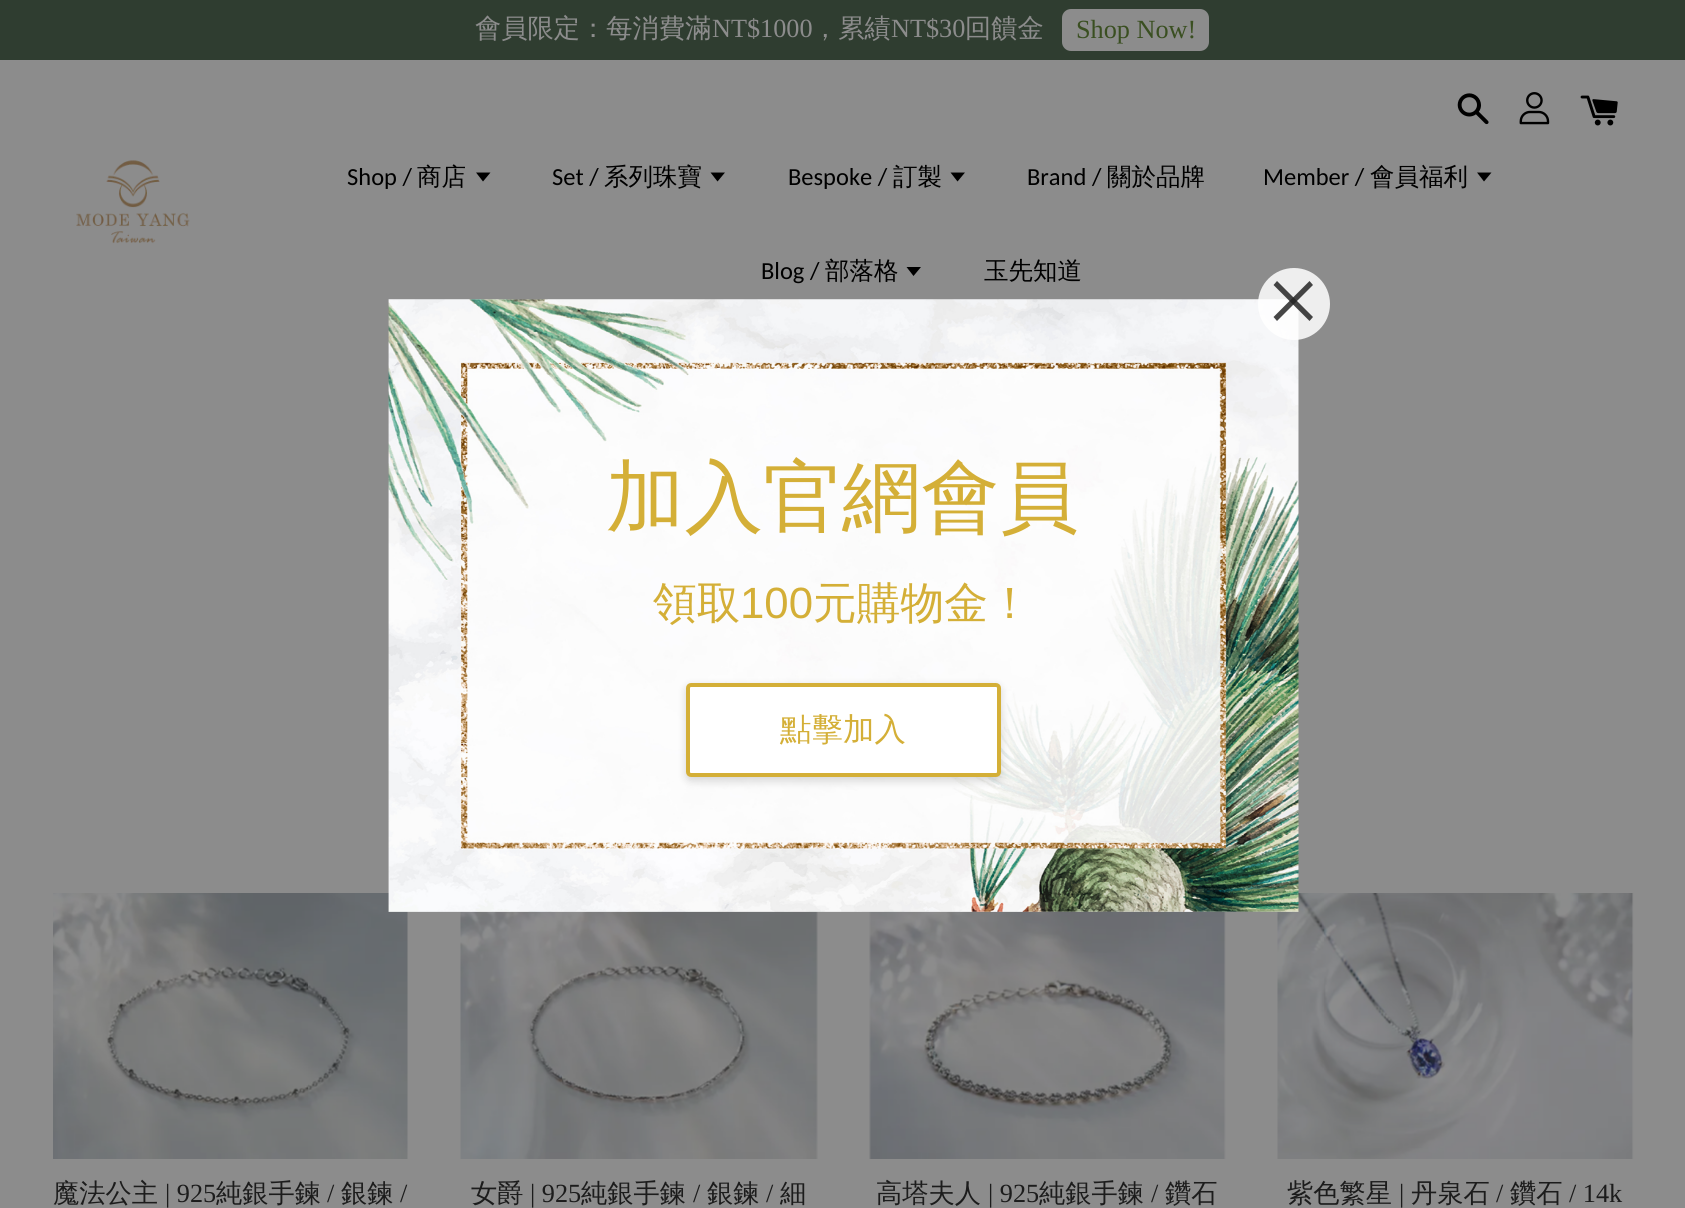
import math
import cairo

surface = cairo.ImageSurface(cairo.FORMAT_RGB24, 1685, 1208)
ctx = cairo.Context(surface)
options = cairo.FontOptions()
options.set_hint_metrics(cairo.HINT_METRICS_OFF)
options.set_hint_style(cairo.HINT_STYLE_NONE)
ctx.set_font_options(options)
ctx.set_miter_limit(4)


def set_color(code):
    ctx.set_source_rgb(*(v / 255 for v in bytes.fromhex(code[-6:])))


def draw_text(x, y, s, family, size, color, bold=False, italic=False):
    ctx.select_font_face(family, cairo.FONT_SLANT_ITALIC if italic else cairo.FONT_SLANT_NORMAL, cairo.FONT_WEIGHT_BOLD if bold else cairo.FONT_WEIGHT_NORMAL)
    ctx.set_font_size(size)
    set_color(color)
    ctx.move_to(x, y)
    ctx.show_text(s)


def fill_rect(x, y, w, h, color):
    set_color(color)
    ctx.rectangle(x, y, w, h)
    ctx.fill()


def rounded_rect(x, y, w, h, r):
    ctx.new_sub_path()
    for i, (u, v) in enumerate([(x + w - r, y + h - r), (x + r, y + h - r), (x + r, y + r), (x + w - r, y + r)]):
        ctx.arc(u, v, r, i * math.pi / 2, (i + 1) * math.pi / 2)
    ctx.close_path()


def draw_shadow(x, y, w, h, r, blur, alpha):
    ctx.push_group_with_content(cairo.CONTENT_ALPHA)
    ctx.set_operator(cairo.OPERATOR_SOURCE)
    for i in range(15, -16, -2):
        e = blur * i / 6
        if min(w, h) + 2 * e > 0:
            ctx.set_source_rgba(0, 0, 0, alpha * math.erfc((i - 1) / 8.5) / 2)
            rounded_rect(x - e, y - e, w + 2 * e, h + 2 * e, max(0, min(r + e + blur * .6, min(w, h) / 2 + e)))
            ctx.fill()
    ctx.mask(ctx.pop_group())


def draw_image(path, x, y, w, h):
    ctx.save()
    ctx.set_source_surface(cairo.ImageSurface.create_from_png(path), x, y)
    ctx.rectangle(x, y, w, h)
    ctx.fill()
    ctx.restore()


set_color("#8c8c8c")
ctx.paint()
fill_rect(0, 0, 1685, 60, "#2f3d30")
draw_text(475, 37, "會員限定：每消費滿", "WenQuanYi Zen Hei Medium", 26.25, "#8c8c8c")
draw_text(712, 37, "NT$1000", "Liberation Serif", 26.25, "#8c8c8c")
draw_text(812, 37, "，累績", "WenQuanYi Zen Hei Medium", 26.25, "#8c8c8c")
draw_text(891, 37, "NT$30", "Liberation Serif", 26.25, "#8c8c8c")
draw_text(965, 37, "回饋金", "WenQuanYi Zen Hei Medium", 26.25, "#8c8c8c")
rounded_rect(1062, 9, 147, 42, 9)
ctx.fill()
draw_text(1076, 38, "Shop Now!", "Liberation Serif", 26.25, "#3a4f21")
draw_image("assets/img1.png", 76, 160, 114, 84)
draw_image("assets/img2.png", 1457, 93, 32, 32)
draw_image("assets/img3.png", 1519, 92, 31, 33)
draw_image("assets/img4.png", 1580, 95, 38, 31)
draw_text(347, 185, "Shop /", "Carlito", 24.5, "#000000")
draw_text(417, 185, "商店", "WenQuanYi Zen Hei Medium", 24.5, "#000000")
ctx.new_path()
ctx.move_to(476, 172.5)
ctx.line_to(483, 181.5)
ctx.line_to(490.5, 172.5)
ctx.close_path()
ctx.fill()
draw_text(552, 185, "Set /", "Carlito", 24.5, "#000000")
draw_text(604, 185, "系列珠寶", "WenQuanYi Zen Hei Medium", 24.5, "#000000")
ctx.new_path()
ctx.move_to(710.5, 172.5)
ctx.line_to(717.5, 181.5)
ctx.line_to(725, 172.5)
ctx.close_path()
ctx.fill()
draw_text(788, 185, "Bespoke /", "Carlito", 24.5, "#000000")
draw_text(893, 185, "訂製", "WenQuanYi Zen Hei Medium", 24.5, "#000000")
ctx.new_path()
ctx.move_to(950.5, 172.5)
ctx.line_to(957.5, 181.5)
ctx.line_to(965, 172.5)
ctx.close_path()
ctx.fill()
draw_text(1027, 185, "Brand /", "Carlito", 24.5, "#000000")
draw_text(1107, 185, "關於品牌", "WenQuanYi Zen Hei Medium", 24.5, "#000000")
draw_text(1263, 185, "Member /", "Carlito", 24.5, "#000000")
draw_text(1370, 185, "會員福利", "WenQuanYi Zen Hei Medium", 24.5, "#000000")
ctx.new_path()
ctx.move_to(1477, 172.5)
ctx.line_to(1484, 181.5)
ctx.line_to(1491.5, 172.5)
ctx.close_path()
ctx.fill()
draw_text(761, 279, "Blog /", "Carlito", 24.5, "#000000")
draw_text(825, 279, "部落格", "WenQuanYi Zen Hei Medium", 24.5, "#000000")
ctx.new_path()
ctx.move_to(906.5, 267)
ctx.line_to(913.5, 276)
ctx.line_to(921, 267)
ctx.close_path()
ctx.fill()
draw_text(984, 279, "玉先知道", "WenQuanYi Zen Hei Medium", 24.5, "#000000")
draw_image("assets/img6.png", 53, 893, 355, 266)
draw_image("assets/img7.png", 460, 911, 358, 248)
draw_image("assets/img8.png", 869, 911, 357, 248)
draw_image("assets/img9.png", 1277, 893, 357, 266)
draw_image("assets/img5.png", 388, 299, 911, 613)
ctx.set_source_rgba(1, 1, 1, 0.85)
ctx.arc(1294, 304, 36, 0, 2 * math.pi)
ctx.fill()
ctx.set_source_rgba(0.149, 0.149, 0.149, 0.85)
ctx.new_path()
ctx.move_to(1309.5, 281)
ctx.line_to(1313, 285)
ctx.line_to(1277, 321)
ctx.line_to(1273.5, 317)
ctx.close_path()
ctx.fill()
ctx.new_path()
ctx.move_to(1273.5, 285)
ctx.line_to(1277, 281)
ctx.line_to(1313, 317)
ctx.line_to(1309.5, 321)
ctx.close_path()
ctx.fill()
draw_text(606, 524, "加入官網會員", "WenQuanYi Zen Hei Medium", 78.75, "#d4af37")
draw_text(653, 618, "領取", "WenQuanYi Zen Hei Medium", 43.75, "#d4af37")
draw_text(740, 618, "100", "Liberation Sans", 43.75, "#d4af37")
draw_text(813, 618, "元購物金！", "WenQuanYi Zen Hei Medium", 43.75, "#d4af37")
set_color("#000000")
draw_shadow(686, 686, 315, 95, 5, 4.5, 0.15)
set_color("#ffffff")
rounded_rect(688, 685, 311, 90, 3)
ctx.fill_preserve()
set_color("#d4af37")
ctx.set_line_width(4)
ctx.stroke()
draw_text(780, 740, "點擊加入", "WenQuanYi Zen Hei Medium", 31.5, "#d4af37")
draw_text(53, 1202, "魔法公主", "WenQuanYi Zen Hei Medium", 26.25, "#1c1c1c")
draw_text(165, 1202, "| 925", "Liberation Serif", 26.25, "#1c1c1c")
draw_text(216, 1202, "純銀手鍊", "WenQuanYi Zen Hei Medium", 26.25, "#1c1c1c")
draw_text(327, 1202, "/", "Liberation Serif", 26.25, "#1c1c1c")
draw_text(341, 1202, "銀鍊", "WenQuanYi Zen Hei Medium", 26.25, "#1c1c1c")
draw_text(400, 1202, "/", "Liberation Serif", 26.25, "#1c1c1c")
draw_text(471, 1202, "女爵", "WenQuanYi Zen Hei Medium", 26.25, "#1c1c1c")
draw_text(530, 1202, "| 925", "Liberation Serif", 26.25, "#1c1c1c")
draw_text(581, 1202, "純銀手鍊", "WenQuanYi Zen Hei Medium", 26.25, "#1c1c1c")
draw_text(693, 1202, "/", "Liberation Serif", 26.25, "#1c1c1c")
draw_text(707, 1202, "銀鍊", "WenQuanYi Zen Hei Medium", 26.25, "#1c1c1c")
draw_text(766, 1202, "/", "Liberation Serif", 26.25, "#1c1c1c")
draw_text(780, 1202, "細", "WenQuanYi Zen Hei Medium", 26.25, "#1c1c1c")
draw_text(876, 1202, "高塔夫人", "WenQuanYi Zen Hei Medium", 26.25, "#1c1c1c")
draw_text(988, 1202, "| 925", "Liberation Serif", 26.25, "#1c1c1c")
draw_text(1039, 1202, "純銀手鍊", "WenQuanYi Zen Hei Medium", 26.25, "#1c1c1c")
draw_text(1151, 1202, "/", "Liberation Serif", 26.25, "#1c1c1c")
draw_text(1165, 1202, "鑽石", "WenQuanYi Zen Hei Medium", 26.25, "#1c1c1c")
draw_text(1287, 1202, "紫色繁星", "WenQuanYi Zen Hei Medium", 26.25, "#1c1c1c")
draw_text(1399, 1202, "|", "Liberation Serif", 26.25, "#1c1c1c")
draw_text(1411, 1202, "丹泉石", "WenQuanYi Zen Hei Medium", 26.25, "#1c1c1c")
draw_text(1496, 1202, "/", "Liberation Serif", 26.25, "#1c1c1c")
draw_text(1510, 1202, "鑽石", "WenQuanYi Zen Hei Medium", 26.25, "#1c1c1c")
draw_text(1569, 1202, "/ 14k", "Liberation Serif", 26.25, "#1c1c1c")
surface.write_to_png("output.png")
